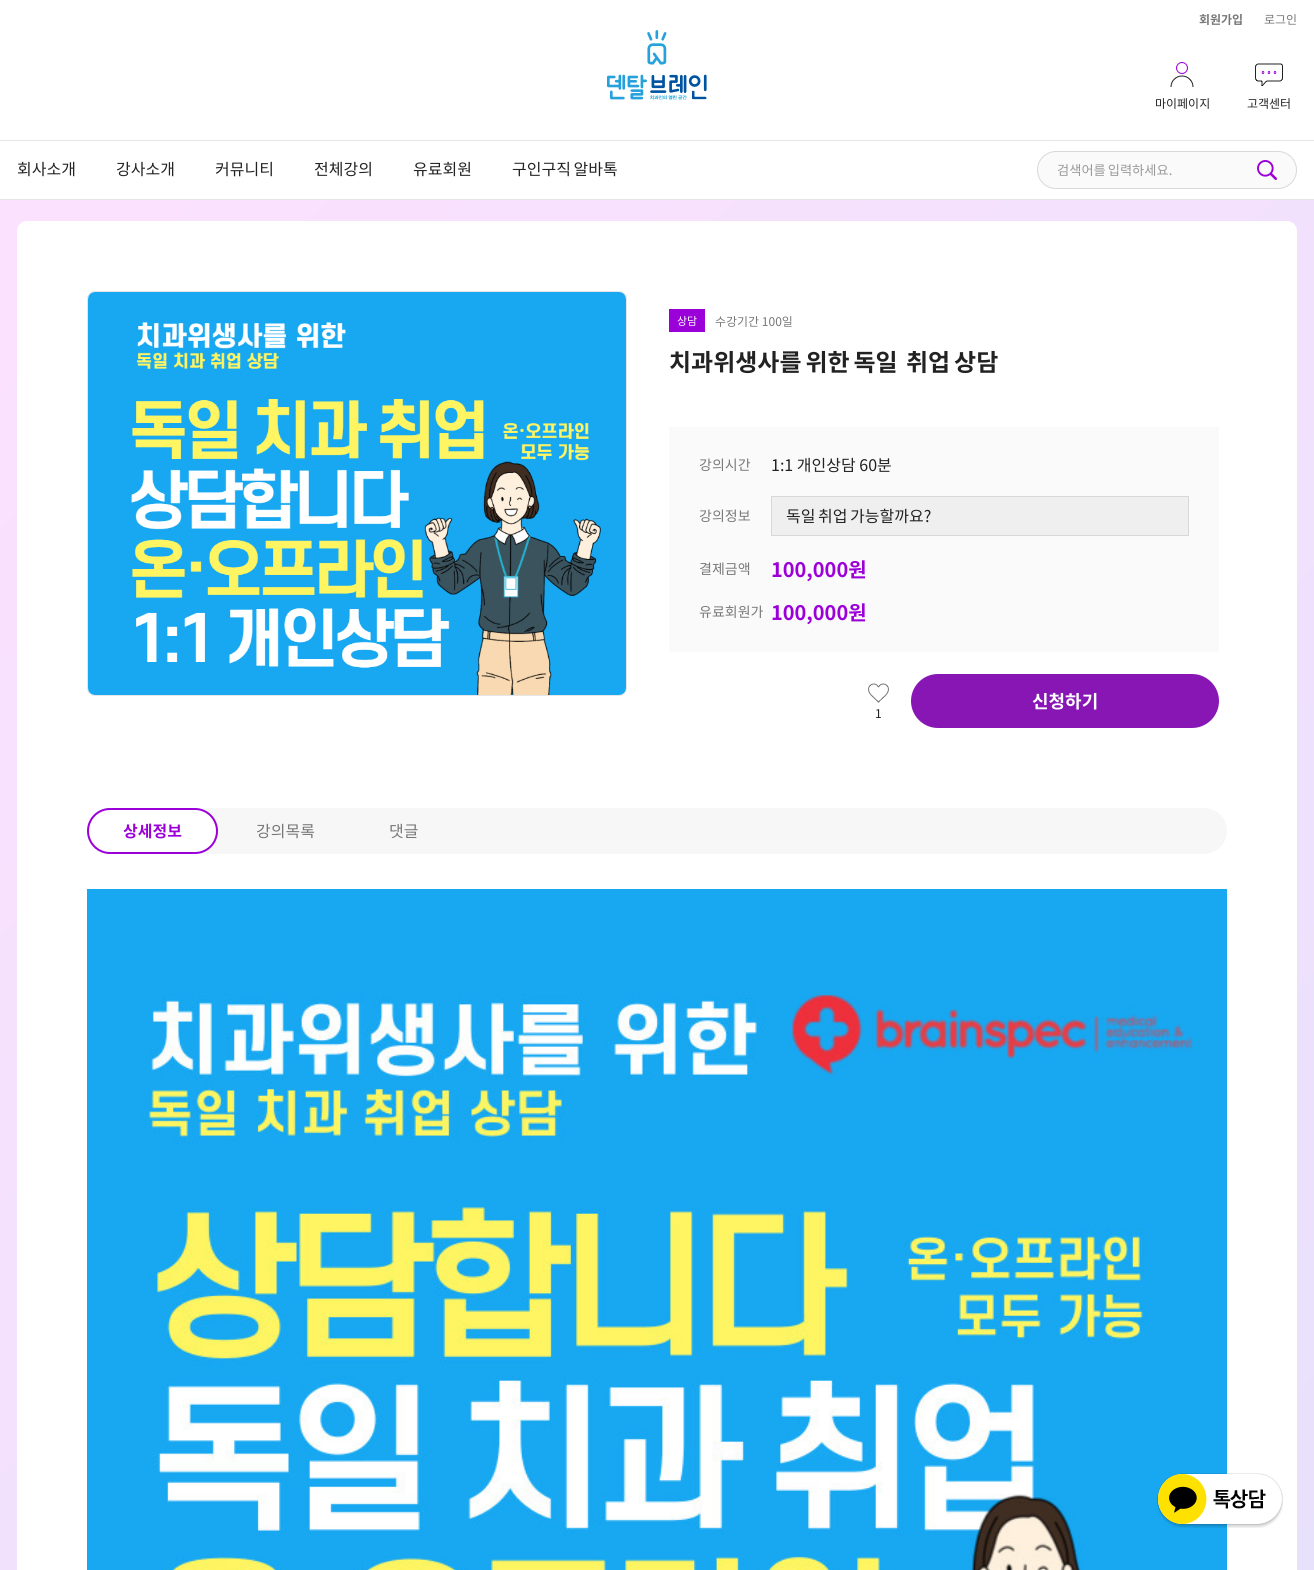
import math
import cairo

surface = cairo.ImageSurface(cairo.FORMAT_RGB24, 1314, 1570)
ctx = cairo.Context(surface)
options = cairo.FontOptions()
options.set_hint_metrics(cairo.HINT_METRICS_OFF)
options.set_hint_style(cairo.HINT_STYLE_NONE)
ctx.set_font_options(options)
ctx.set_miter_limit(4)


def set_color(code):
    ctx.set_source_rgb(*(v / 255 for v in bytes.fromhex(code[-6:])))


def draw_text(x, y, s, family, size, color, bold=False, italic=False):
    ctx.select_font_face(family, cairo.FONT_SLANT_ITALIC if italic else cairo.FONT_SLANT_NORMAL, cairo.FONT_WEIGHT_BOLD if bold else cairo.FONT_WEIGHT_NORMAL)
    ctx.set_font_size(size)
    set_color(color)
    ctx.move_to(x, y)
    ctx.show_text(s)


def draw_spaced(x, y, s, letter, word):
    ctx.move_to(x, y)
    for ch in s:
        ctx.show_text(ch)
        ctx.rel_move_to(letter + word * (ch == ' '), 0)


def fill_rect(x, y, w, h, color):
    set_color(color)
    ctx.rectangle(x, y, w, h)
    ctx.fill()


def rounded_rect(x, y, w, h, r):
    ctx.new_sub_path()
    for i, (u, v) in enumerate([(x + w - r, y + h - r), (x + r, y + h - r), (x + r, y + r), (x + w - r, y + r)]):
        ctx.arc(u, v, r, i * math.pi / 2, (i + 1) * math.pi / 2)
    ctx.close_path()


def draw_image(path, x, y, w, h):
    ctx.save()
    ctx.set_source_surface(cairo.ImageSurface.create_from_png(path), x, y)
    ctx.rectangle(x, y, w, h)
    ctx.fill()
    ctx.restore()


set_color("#ffffff")
ctx.paint()
fill_rect(0, 199, 1314, 1, "#e6e6e6")
draw_text(1199, 24, "회원가입", "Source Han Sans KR", 12, "#777777", bold=True)
draw_text(1264, 24, "로그인", "Source Han Sans KR", 12, "#777777")
draw_image("assets/img1.png", 607, 30, 100, 70)
draw_image("assets/img2.png", 1170, 62, 24, 25)
draw_text(1155, 108, "마이페이지", "Source Han Sans KR", 12, "#222222")
draw_image("assets/img3.png", 1255, 63, 28, 23)
draw_text(1247, 108, "고객센터", "Source Han Sans KR", 12, "#222222")
fill_rect(0, 140, 1314, 1, "#e6e6e6")
draw_text(17, 175, "회사소개", "Source Han Sans KR", 16, "#222222")
draw_text(116, 175, "강사소개", "Source Han Sans KR", 16, "#222222")
draw_text(215, 175, "커뮤니티", "Source Han Sans KR", 16, "#222222")
draw_text(314, 175, "전체강의", "Source Han Sans KR", 16, "#222222")
draw_text(413, 175, "유료회원", "Source Han Sans KR", 16, "#222222")
draw_spaced(512, 175, "구인구직 알바톡", 0, -1)
set_color("#fafafa")
rounded_rect(1037.5, 151.5, 259, 37, 18.5)
ctx.fill_preserve()
set_color("#d8d8d8")
ctx.set_line_width(1)
ctx.stroke()
ctx.set_font_size(13.25)
set_color("#999999")
draw_spaced(1057, 175, "검색어를 입력하세요.", 0, -1)
draw_image("assets/img4.png", 1257, 160, 20, 20)
gradient = cairo.LinearGradient(-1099, 1299, 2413, 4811)
gradient.add_color_stop_rgba(0, 0.988, 0.882, 0.996, 1)
gradient.add_color_stop_rgba(1, 0.784, 0.882, 0.976, 1)
ctx.set_source(gradient)
ctx.rectangle(0, 200, 1314, 1370)
ctx.fill()
set_color("#ffffff")
rounded_rect(17, 221, 1280, 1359, 10)
ctx.fill()
rounded_rect(87.5, 291.5, 539, 404, 7.5)
set_color("#e6e6e6")
ctx.stroke()
draw_image("assets/img5.png", 88, 292, 538, 403)
fill_rect(669, 309, 36, 23, "#9b00d8")
draw_text(677, 325, "상담", "Source Han Sans KR", 11, "#ffffff")
draw_text(715, 326, "수강기간 100일", "Source Han Sans KR", 12, "#777777")
ctx.select_font_face("Source Han Sans KR", cairo.FONT_SLANT_NORMAL, cairo.FONT_WEIGHT_BOLD)
ctx.set_font_size(24)
set_color("#222222")
draw_spaced(669, 371, "치과위생사를 위한 독일", 0, -1.5)
draw_spaced(906, 371, "취업 상담", 0, -1.5)
fill_rect(669, 427, 550, 225, "#fafafa")
draw_text(699, 470, "강의시간", "Source Han Sans KR", 14, "#777777")
draw_text(771, 471, "1:1 개인상담 60분", "Source Han Sans KR", 16, "#222222")
draw_text(699, 521, "강의정보", "Source Han Sans KR", 14, "#777777")
set_color("#efefef")
ctx.rectangle(771.5, 496.5, 417, 39)
ctx.fill_preserve()
set_color("#d8d8d8")
ctx.stroke()
ctx.set_font_size(16)
set_color("#222222")
draw_spaced(786, 522, "독일 취업 가능할까요?", 0, -1)
draw_text(699, 574, "결제금액", "Source Han Sans KR", 14, "#777777")
draw_text(771, 577, "100,000원", "Source Han Sans KR", 20, "#9b00d8", bold=True)
draw_text(699, 617, "유료회원가", "Source Han Sans KR", 14, "#777777")
draw_text(771, 620, "100,000원", "Source Han Sans KR", 20, "#9b00d8", bold=True)
set_color("#8816b5")
rounded_rect(911, 674, 308, 54, 27)
ctx.fill()
draw_text(1032, 708, "신청하기", "Source Han Sans KR", 18, "#ffffff", bold=True)
draw_image("assets/img6.png", 868, 683, 21, 20)
draw_text(875, 718, "1", "Source Han Sans KR", 12, "#222222")
set_color("#f7f7f7")
rounded_rect(87, 808, 1140, 46, 23)
ctx.fill()
set_color("#ffffff")
rounded_rect(88, 809, 129, 44, 22)
ctx.fill_preserve()
set_color("#9b00d8")
ctx.set_line_width(2)
ctx.stroke()
draw_text(123, 837, "상세정보", "Source Han Sans KR", 16, "#9b00d8", bold=True)
draw_text(256, 837, "강의목록", "Source Han Sans KR", 16, "#777777")
draw_text(389, 837, "댓글", "Source Han Sans KR", 16, "#777777")
draw_image("assets/img7.png", 87, 889, 1140, 681)
draw_image("assets/img8.png", 1157, 1473, 126, 55)
surface.write_to_png("output.png")
